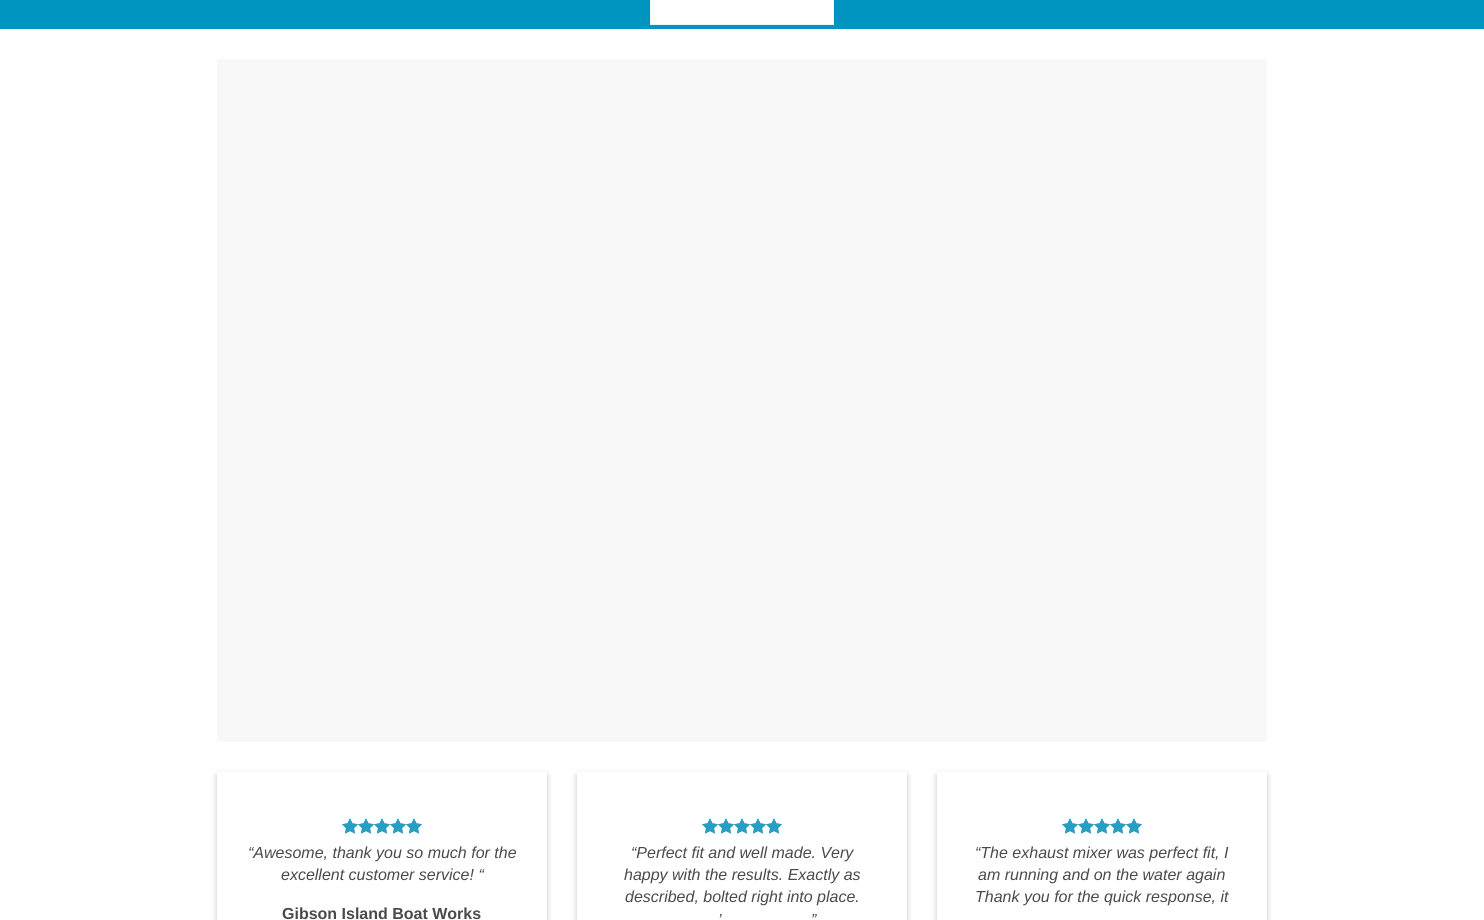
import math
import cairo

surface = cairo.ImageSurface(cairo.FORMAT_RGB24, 1484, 920)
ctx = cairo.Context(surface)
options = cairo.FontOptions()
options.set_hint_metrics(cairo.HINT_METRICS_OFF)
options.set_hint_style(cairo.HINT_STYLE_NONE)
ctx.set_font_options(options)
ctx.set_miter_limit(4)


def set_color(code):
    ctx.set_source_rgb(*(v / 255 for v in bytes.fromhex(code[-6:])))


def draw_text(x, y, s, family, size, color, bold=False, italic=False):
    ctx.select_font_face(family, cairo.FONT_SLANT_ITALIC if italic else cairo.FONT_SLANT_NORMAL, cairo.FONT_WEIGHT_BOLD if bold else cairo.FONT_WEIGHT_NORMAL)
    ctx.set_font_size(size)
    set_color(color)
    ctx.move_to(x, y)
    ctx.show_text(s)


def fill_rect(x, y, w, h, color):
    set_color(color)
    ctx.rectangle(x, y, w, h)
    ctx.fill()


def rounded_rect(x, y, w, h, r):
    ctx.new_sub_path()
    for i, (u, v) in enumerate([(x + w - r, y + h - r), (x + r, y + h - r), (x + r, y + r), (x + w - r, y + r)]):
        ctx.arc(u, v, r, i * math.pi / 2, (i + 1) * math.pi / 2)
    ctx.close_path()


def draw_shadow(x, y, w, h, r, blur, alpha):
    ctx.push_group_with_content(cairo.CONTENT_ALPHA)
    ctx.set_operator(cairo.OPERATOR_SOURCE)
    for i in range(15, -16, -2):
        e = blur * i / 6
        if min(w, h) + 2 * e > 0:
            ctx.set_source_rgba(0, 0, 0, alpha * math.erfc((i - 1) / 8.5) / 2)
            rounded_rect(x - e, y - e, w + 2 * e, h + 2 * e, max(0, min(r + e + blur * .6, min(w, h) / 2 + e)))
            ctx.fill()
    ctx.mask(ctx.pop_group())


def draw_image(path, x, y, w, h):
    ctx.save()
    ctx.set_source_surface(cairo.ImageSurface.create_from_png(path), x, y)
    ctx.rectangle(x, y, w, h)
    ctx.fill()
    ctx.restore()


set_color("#ffffff")
ctx.paint()
fill_rect(0, 0, 1484, 29, "#0094c1")
set_color("#ffffff")
ctx.rectangle(650.5, -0.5, 183, 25)
ctx.fill_preserve()
set_color("#f2f2f2")
ctx.set_line_width(1)
ctx.stroke()
fill_rect(217, 59, 1050, 683, "#f8f8f8")
ctx.save()
ctx.set_fill_rule(cairo.FILL_RULE_EVEN_ODD)
ctx.new_path()
ctx.move_to(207, 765)
ctx.line_to(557, 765)
ctx.line_to(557, 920)
ctx.line_to(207, 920)
ctx.close_path()
ctx.move_to(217, 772)
ctx.line_to(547, 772)
ctx.line_to(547, 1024)
ctx.line_to(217, 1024)
ctx.close_path()
ctx.clip()
set_color("#000000")
draw_shadow(217, 775, 330, 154, 0, 3, 0.23)
ctx.restore()
draw_image("assets/img1.png", 342, 818, 80, 16)
draw_image("assets/img2.png", 342, 818, 80, 16)
draw_text(248, 858, "“Awesome, thank you so much for the", "Liberation Sans", 16, "#4a4a4a", italic=True)
draw_text(281, 880, "excellent customer service! “", "Liberation Sans", 16, "#4a4a4a", italic=True)
draw_text(282, 919, "Gibson Island Boat Works", "Liberation Sans", 16, "#4a4a4a", bold=True)
ctx.save()
ctx.set_fill_rule(cairo.FILL_RULE_EVEN_ODD)
ctx.new_path()
ctx.move_to(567, 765)
ctx.line_to(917, 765)
ctx.line_to(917, 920)
ctx.line_to(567, 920)
ctx.close_path()
ctx.move_to(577, 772)
ctx.line_to(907, 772)
ctx.line_to(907, 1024)
ctx.line_to(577, 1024)
ctx.close_path()
ctx.clip()
set_color("#000000")
draw_shadow(577, 775, 330, 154, 0, 3, 0.23)
ctx.restore()
draw_image("assets/img1.png", 702, 818, 80, 16)
draw_image("assets/img2.png", 702, 818, 80, 16)
draw_text(631, 858, "“Perfect fit and well made. Very", "Liberation Sans", 16, "#4a4a4a", italic=True)
draw_text(624, 880, "happy with the results. Exactly as", "Liberation Sans", 16, "#4a4a4a", italic=True)
draw_text(625, 902, "described, bolted right into place.", "Liberation Sans", 16, "#4a4a4a", italic=True)
draw_text(718, 925, "’", "Liberation Sans", 16, "#4a4a4a", italic=True)
draw_text(811, 925, "”", "Liberation Sans", 16, "#4a4a4a", italic=True)
ctx.save()
ctx.set_fill_rule(cairo.FILL_RULE_EVEN_ODD)
ctx.new_path()
ctx.move_to(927, 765)
ctx.line_to(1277, 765)
ctx.line_to(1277, 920)
ctx.line_to(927, 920)
ctx.close_path()
ctx.move_to(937, 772)
ctx.line_to(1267, 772)
ctx.line_to(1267, 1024)
ctx.line_to(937, 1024)
ctx.close_path()
ctx.clip()
set_color("#000000")
draw_shadow(937, 775, 330, 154, 0, 3, 0.23)
ctx.restore()
draw_image("assets/img1.png", 1062, 818, 80, 16)
draw_image("assets/img2.png", 1062, 818, 80, 16)
draw_text(975, 858, "“The exhaust mixer was perfect fit, I", "Liberation Sans", 16, "#4a4a4a", italic=True)
draw_text(978, 880, "am running and on the water again", "Liberation Sans", 16, "#4a4a4a", italic=True)
draw_text(975, 902, "Thank you for the quick response, it", "Liberation Sans", 16, "#4a4a4a", italic=True)
surface.write_to_png("output.png")
